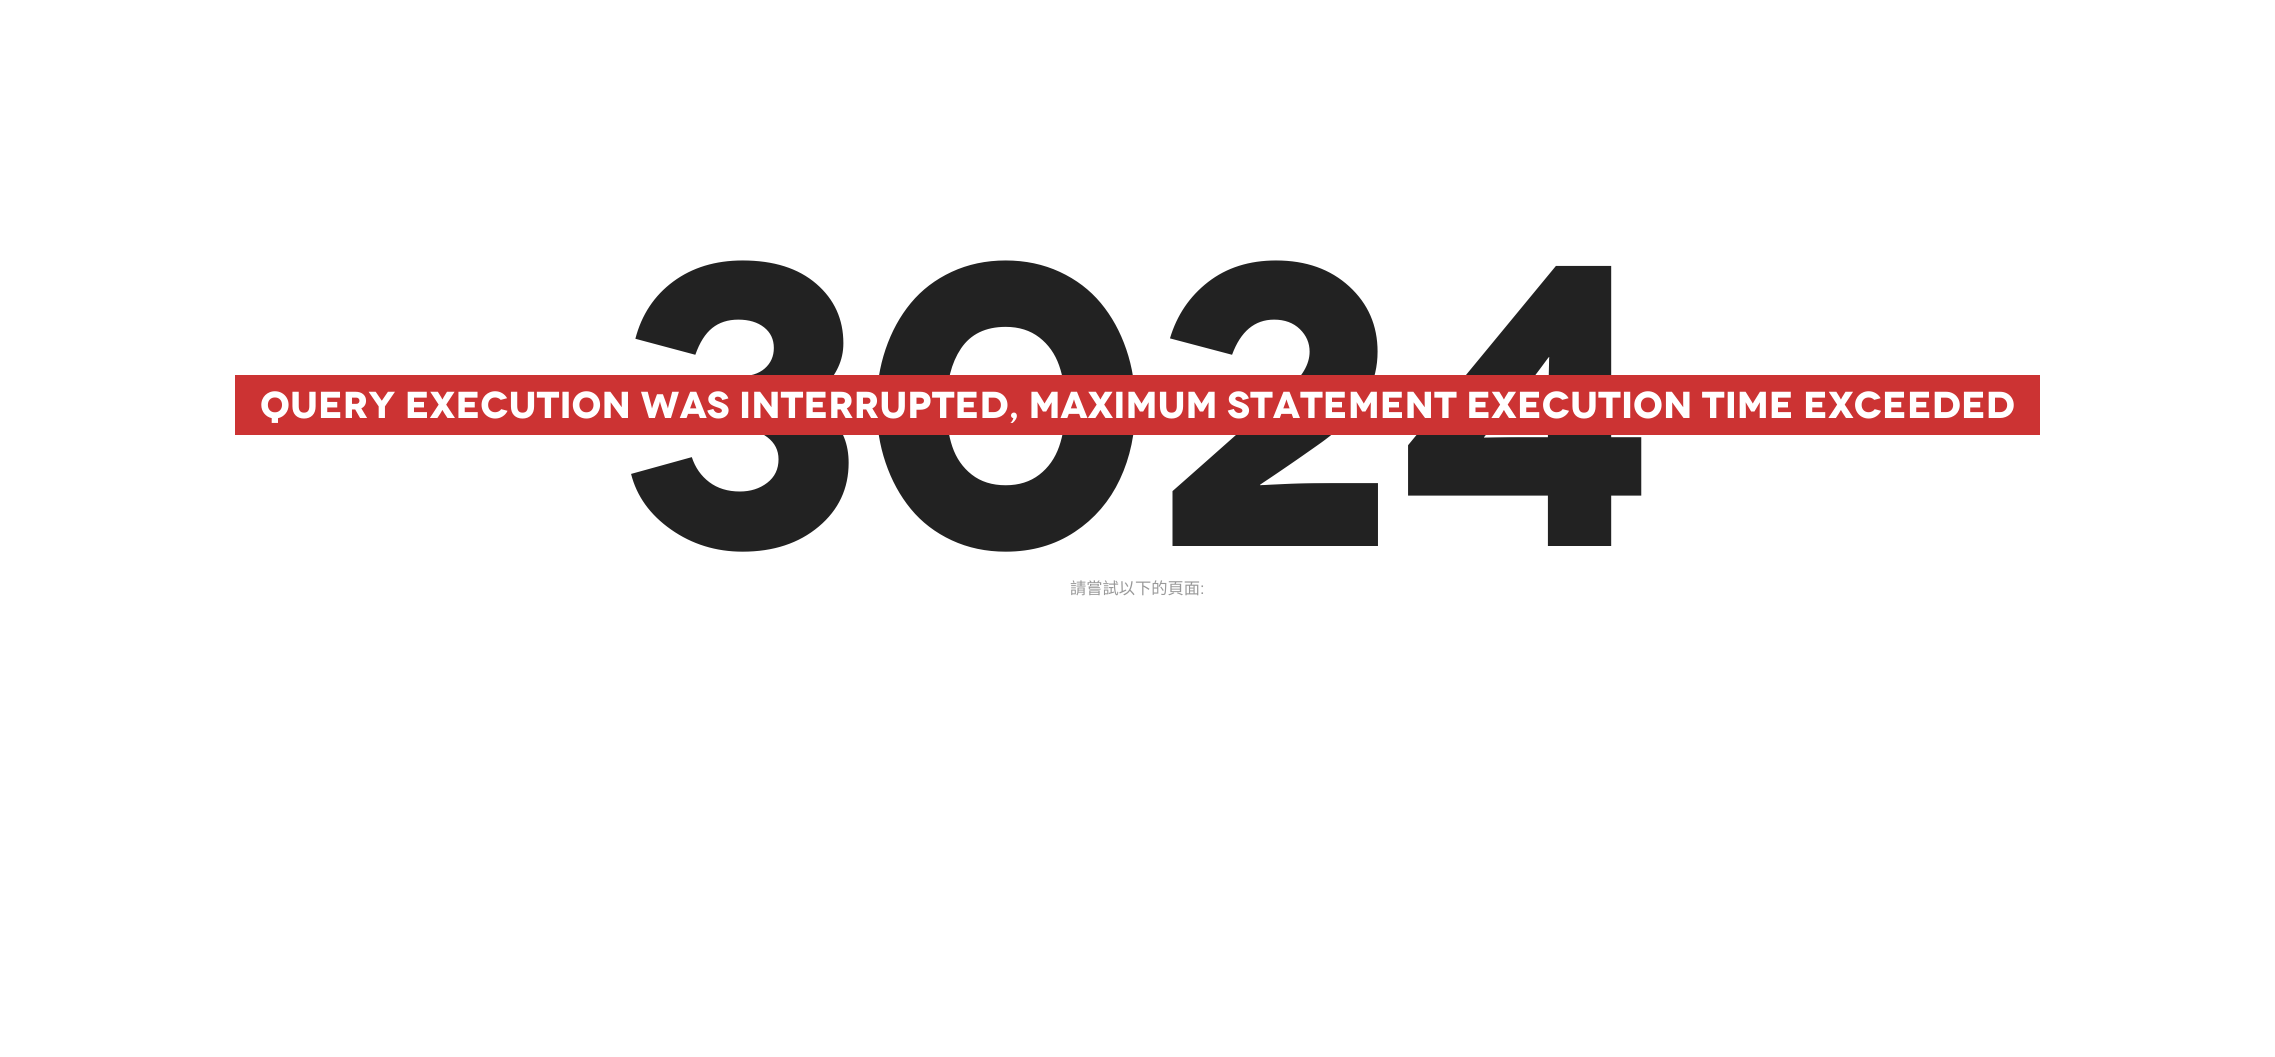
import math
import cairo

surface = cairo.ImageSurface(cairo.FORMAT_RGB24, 2275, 1057)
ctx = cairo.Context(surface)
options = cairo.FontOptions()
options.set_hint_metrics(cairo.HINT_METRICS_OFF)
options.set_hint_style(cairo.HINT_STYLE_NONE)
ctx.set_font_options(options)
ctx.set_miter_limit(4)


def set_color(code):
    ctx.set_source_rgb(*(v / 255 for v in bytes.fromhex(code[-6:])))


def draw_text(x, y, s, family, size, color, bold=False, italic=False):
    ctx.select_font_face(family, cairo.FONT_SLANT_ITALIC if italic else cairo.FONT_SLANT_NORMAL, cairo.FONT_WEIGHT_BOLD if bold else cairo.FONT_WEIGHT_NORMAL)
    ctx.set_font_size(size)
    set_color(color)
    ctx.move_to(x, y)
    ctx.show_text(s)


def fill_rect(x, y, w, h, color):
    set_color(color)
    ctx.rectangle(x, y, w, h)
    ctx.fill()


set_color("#ffffff")
ctx.paint()
draw_text(617, 546, "3024", "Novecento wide", 400, "#222222", bold=True)
fill_rect(235, 375, 1805, 60, "#cc3333")
draw_text(260, 418, "Query execution was interrupted, maximum statement execution time exceeded", "Novecento wide", 37.5, "#ffffff", bold=True)
draw_text(1070, 594, "請嘗試以下的頁面", "Noto Sans CJK TC", 16.25, "#999999")
draw_text(1200, 594, ":", "Liberation Sans", 16.25, "#999999")
surface.write_to_png("output.png")
